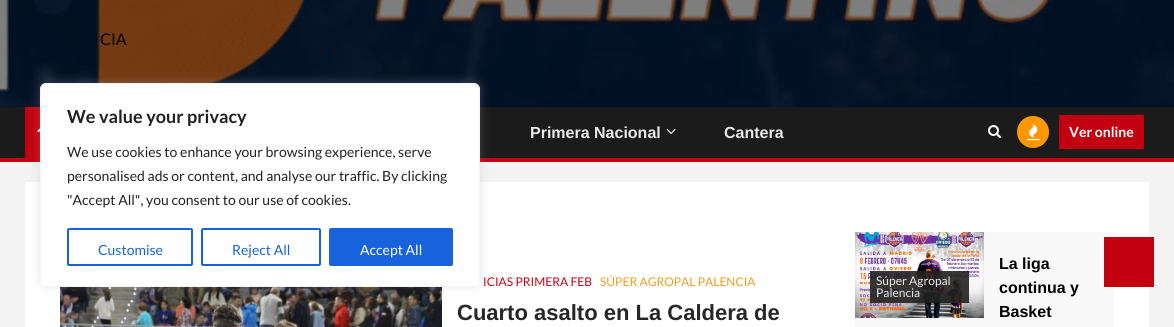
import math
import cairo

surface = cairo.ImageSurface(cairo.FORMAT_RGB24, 1174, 327)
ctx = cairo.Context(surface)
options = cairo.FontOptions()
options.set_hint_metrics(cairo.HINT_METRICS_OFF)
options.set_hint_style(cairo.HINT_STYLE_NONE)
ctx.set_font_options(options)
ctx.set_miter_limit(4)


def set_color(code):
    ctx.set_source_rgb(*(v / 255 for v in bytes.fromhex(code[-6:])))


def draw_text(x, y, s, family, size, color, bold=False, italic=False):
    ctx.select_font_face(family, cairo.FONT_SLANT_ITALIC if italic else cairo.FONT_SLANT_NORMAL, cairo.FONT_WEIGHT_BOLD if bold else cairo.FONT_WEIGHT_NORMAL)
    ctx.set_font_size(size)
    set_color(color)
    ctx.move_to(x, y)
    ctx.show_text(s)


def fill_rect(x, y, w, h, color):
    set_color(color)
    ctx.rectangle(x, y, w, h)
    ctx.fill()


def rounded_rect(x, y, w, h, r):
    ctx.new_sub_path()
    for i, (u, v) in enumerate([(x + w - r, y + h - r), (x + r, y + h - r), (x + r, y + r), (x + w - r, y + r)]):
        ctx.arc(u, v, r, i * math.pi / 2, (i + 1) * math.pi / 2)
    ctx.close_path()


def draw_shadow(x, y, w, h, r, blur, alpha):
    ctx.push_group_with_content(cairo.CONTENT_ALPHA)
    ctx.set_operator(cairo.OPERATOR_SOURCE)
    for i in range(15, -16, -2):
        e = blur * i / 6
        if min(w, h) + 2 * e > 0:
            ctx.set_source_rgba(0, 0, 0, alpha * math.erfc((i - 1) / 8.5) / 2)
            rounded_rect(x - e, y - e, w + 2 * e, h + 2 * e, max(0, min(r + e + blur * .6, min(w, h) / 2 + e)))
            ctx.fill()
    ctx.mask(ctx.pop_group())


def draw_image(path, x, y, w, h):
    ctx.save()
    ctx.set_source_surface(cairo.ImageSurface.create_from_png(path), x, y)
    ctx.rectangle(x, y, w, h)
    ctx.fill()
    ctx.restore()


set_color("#f3f3f3")
ctx.paint()
draw_image("assets/img1.png", 0, 0, 1174, 107)
draw_text(100, 45, "CIA", "Lato", 16, "#000000")
fill_rect(0, 107, 1174, 51, "#1b1b1b")
fill_rect(0, 158, 1174, 4, "#c30010")
fill_rect(25, 107, 15, 51, "#c30010")
draw_image("assets/img2.png", 37, 128, 3, 5)
draw_text(530, 138, "Primera Nacional", "Liberation Sans", 16, "#eaeaea", bold=True)
draw_image("assets/img3.png", 666, 129, 10, 6)
draw_text(724, 138, "Cantera", "Liberation Sans", 16, "#eaeaea", bold=True)
draw_image("assets/img4.png", 988, 125, 13, 13)
set_color("#ff9800")
ctx.arc(1033, 132, 16, 0, 2 * math.pi)
ctx.fill()
draw_image("assets/img5.png", 1027, 124, 13, 17)
fill_rect(1059, 115, 85, 34, "#c30010")
draw_text(1069, 137, "Ver online", "Lato", 14, "#ffffff", bold=True)
fill_rect(25, 182, 1124, 145, "#ffffff")
draw_image("assets/img6.png", 60, 287, 382, 40)
draw_text(483, 286, "ICIAS PRIMERA FEB", "Lato", 12, "#cc0010")
draw_text(600, 286, "SÚPER AGROPAL PALENCIA", "Lato", 12, "#f19c20")
draw_text(457, 320, "Cuarto asalto en La Caldera de", "Liberation Sans", 22, "#272727", bold=True)
fill_rect(855, 232, 259, 95, "#f9f9f9")
draw_image("assets/img7.png", 855, 232, 129, 86)
ctx.set_source_rgba(0.133, 0.133, 0.133, 0.9)
ctx.rectangle(870, 271, 99, 32)
ctx.fill()
draw_text(876, 285, "Súper Agropal", "Lato", 12, "#eaeaea")
draw_text(876, 297, "Palencia", "Lato", 12, "#eaeaea")
draw_text(999, 269, "La liga", "Liberation Sans", 16, "#000000", bold=True)
draw_text(999, 293, "continua y", "Liberation Sans", 16, "#000000", bold=True)
draw_text(999, 317, "Basket", "Liberation Sans", 16, "#000000", bold=True)
set_color("#acabab")
draw_shadow(40, 82, 440, 204, 6, 5, 0.3)
set_color("#ffffff")
rounded_rect(40.5, 83.5, 439, 203, 5.5)
ctx.fill_preserve()
set_color("#f4f4f4")
ctx.set_line_width(1)
ctx.stroke()
draw_text(67, 123, "We value your privacy", "Lato", 18, "#212121", bold=True)
draw_text(67, 157, "We use cookies to enhance your browsing experience, serve", "Lato", 14, "#212121")
draw_text(67, 181, "personalised ads or content, and analyse our traffic. By clicking", "Lato", 14, "#212121")
draw_text(67, 205, "\"Accept All\", you consent to our use of cookies.", "Lato", 14, "#212121")
rounded_rect(68, 229, 124, 36, 1)
set_color("#1863dc")
ctx.set_line_width(2)
ctx.stroke()
draw_text(98, 255, "Customise", "Lato", 14, "#1863dc")
rounded_rect(202, 229, 118, 36, 1)
ctx.stroke()
draw_text(232, 255, "Reject All", "Lato", 14, "#1863dc")
rounded_rect(330, 229, 122, 36, 1)
ctx.fill_preserve()
ctx.stroke()
draw_text(360, 255, "Accept All", "Lato", 14, "#ffffff")
fill_rect(1104, 237, 50, 50, "#c30010")
surface.write_to_png("output.png")
